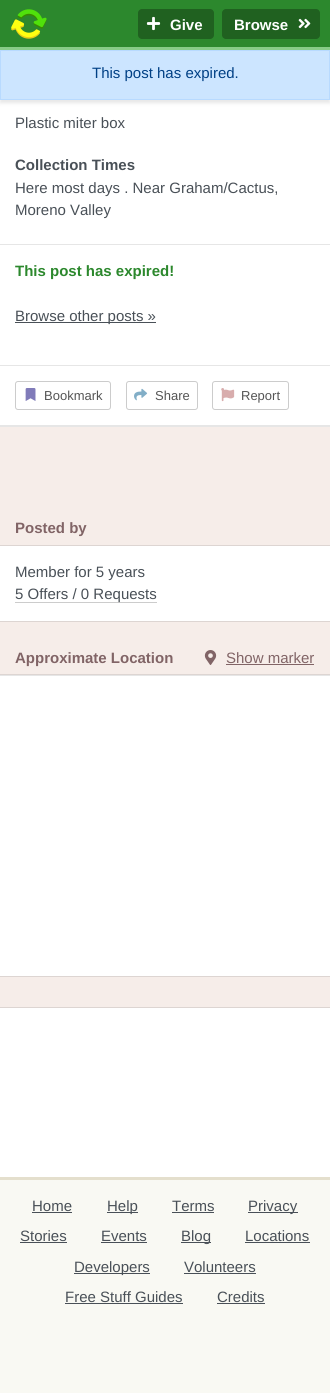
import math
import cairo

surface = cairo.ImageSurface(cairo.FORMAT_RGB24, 330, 1393)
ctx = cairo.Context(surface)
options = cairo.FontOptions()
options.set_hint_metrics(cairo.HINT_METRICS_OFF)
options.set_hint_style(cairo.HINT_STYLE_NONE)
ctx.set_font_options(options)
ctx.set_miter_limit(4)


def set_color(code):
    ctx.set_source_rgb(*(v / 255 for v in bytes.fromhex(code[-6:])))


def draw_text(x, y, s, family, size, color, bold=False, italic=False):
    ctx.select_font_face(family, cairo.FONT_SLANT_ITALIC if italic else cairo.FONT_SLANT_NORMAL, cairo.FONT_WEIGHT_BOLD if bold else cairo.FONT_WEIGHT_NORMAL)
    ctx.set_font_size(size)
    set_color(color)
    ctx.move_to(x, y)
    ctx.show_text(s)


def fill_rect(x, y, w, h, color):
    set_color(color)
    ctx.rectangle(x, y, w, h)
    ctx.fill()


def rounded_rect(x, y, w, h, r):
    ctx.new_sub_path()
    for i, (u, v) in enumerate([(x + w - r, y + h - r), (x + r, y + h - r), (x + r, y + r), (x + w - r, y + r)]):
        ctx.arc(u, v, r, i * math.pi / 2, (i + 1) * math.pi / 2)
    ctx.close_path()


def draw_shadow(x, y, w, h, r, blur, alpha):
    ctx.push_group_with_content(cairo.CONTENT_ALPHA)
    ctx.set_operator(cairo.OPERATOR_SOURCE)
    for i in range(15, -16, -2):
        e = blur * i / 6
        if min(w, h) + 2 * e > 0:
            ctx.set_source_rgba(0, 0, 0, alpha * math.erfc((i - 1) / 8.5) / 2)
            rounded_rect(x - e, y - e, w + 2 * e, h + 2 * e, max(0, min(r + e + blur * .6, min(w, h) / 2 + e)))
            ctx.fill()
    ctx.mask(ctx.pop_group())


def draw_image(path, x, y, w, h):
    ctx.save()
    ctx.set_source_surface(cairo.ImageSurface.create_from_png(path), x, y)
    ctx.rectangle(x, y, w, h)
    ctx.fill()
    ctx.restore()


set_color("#ffffff")
ctx.paint()
set_color("#000000")
draw_shadow(0, 53, 330, 50, 0, 2, 0.1)
fill_rect(0, 0, 330, 47, "#2c882d")
fill_rect(0, 47, 330, 3, "#87cb87")
draw_image("assets/img1.png", 11, 9, 36, 30)
set_color("#206120")
rounded_rect(138, 9, 76, 30, 4)
ctx.fill()
draw_image("assets/img2.png", 146, 16, 15, 15)
draw_text(170, 30, "Give", "Liberation Sans", 15, "#ffffff", bold=True)
set_color("#206120")
rounded_rect(222, 9, 98, 30, 4)
ctx.fill()
draw_text(234, 30, "Browse", "Liberation Sans", 15, "#ffffff", bold=True)
draw_image("assets/img3.png", 298, 18, 13, 11)
set_color("#cce5ff")
ctx.rectangle(0.5, 50.5, 329, 49)
ctx.fill_preserve()
set_color("#b8daff")
ctx.set_line_width(1)
ctx.stroke()
draw_text(92, 78, "This post has expired.", "Liberation Sans", 15, "#004085")
draw_text(15, 128, "Plastic miter box", "Liberation Sans", 15, "#495057")
draw_text(15, 170, "Collection Times", "Liberation Sans", 15, "#495057", bold=True)
draw_text(15, 193, "Here most days . Near Graham/Cactus,", "Liberation Sans", 15, "#495057")
draw_text(15, 215, "Moreno Valley", "Liberation Sans", 15, "#495057")
fill_rect(0, 244, 330, 1, "#e6e6e6")
fill_rect(0, 365, 330, 1, "#e6e6e6")
draw_text(15, 276, "This post has expired!", "Liberation Sans", 15, "#2c882d", bold=True)
fill_rect(15, 322, 141, 1, "#495057")
draw_text(15, 321, "Browse other posts »", "Liberation Sans", 15, "#495057")
fill_rect(0, 425, 330, 2, "#e6e6e6")
rounded_rect(15.5, 381.5, 95, 28, 2.5)
set_color("#cccccc")
ctx.stroke()
draw_image("assets/img4.png", 25, 388, 11, 13)
draw_text(44, 400, "Bookmark", "Liberation Sans", 13, "#555555")
rounded_rect(126.5, 381.5, 71, 28, 2.5)
set_color("#cccccc")
ctx.stroke()
draw_image("assets/img5.png", 134, 388, 14, 13)
draw_text(155, 400, "Share", "Liberation Sans", 13, "#555555")
rounded_rect(212.5, 381.5, 76, 28, 2.5)
set_color("#cccccc")
ctx.stroke()
draw_image("assets/img6.png", 221, 388, 14, 14)
draw_text(241, 400, "Report", "Liberation Sans", 13, "#555555")
fill_rect(0, 427, 330, 118, "#f6ede9")
fill_rect(0, 545, 330, 1, "#ddd5d2")
draw_text(15, 533, "Posted by", "Liberation Sans", 15, "#816466", bold=True)
draw_text(15, 577, "Member for 5 years", "Liberation Sans", 15, "#495057")
fill_rect(15, 602, 142, 1, "#cccccc")
draw_text(15, 599, "5 Offers / 0 Requests", "Liberation Sans", 15, "#495057")
fill_rect(0, 622, 330, 52, "#f6ede9")
fill_rect(0, 621, 330, 1, "#ddd5d2")
fill_rect(0, 674, 330, 1, "#ddd5d2")
draw_text(15, 663, "Approximate Location", "Liberation Sans", 15, "#816466", bold=True)
draw_image("assets/img7.png", 204, 650, 13, 15)
draw_text(226, 663, "Show marker", "Liberation Sans", 15, "#816466")
fill_rect(226, 664, 88, 1, "#816466")
fill_rect(0, 675, 330, 1, "#e6e6e6")
fill_rect(0, 977, 330, 30, "#f6ede9")
fill_rect(0, 976, 330, 1, "#ddd5d2")
fill_rect(0, 1007, 330, 1, "#ddd5d2")
fill_rect(0, 1180, 330, 213, "#f9f9f3")
fill_rect(0, 1177, 330, 3, "#e4dfcd")
draw_text(32, 1211, "Home", "Liberation Sans", 15, "#495057")
fill_rect(32, 1212, 40, 1, "#495057")
fill_rect(107, 1212, 31, 1, "#495057")
draw_text(107, 1211, "Help", "Liberation Sans", 15, "#495057")
draw_text(172, 1211, "Terms", "Liberation Sans", 15, "#495057")
fill_rect(172, 1212, 42, 1, "#495057")
fill_rect(248, 1212, 50, 1, "#495057")
draw_text(248, 1211, "Privacy", "Liberation Sans", 15, "#495057")
draw_text(20, 1241, "Stories", "Liberation Sans", 15, "#495057")
fill_rect(20, 1242, 47, 1, "#495057")
draw_text(101, 1241, "Events", "Liberation Sans", 15, "#495057")
fill_rect(101, 1242, 46, 1, "#495057")
fill_rect(181, 1242, 30, 1, "#495057")
draw_text(181, 1241, "Blog", "Liberation Sans", 15, "#495057")
draw_text(245, 1241, "Locations", "Liberation Sans", 15, "#495057")
fill_rect(245, 1242, 65, 1, "#495057")
fill_rect(74, 1273, 76, 1, "#495057")
draw_text(74, 1272, "Developers", "Liberation Sans", 15, "#495057")
draw_text(184, 1272, "Volunteers", "Liberation Sans", 15, "#495057")
fill_rect(184, 1273, 72, 1, "#495057")
draw_text(65, 1302, "Free Stuff Guides", "Liberation Sans", 15, "#495057")
fill_rect(65, 1303, 118, 1, "#495057")
draw_text(217, 1302, "Credits", "Liberation Sans", 15, "#495057")
fill_rect(217, 1303, 48, 1, "#495057")
surface.write_to_png("output.png")
